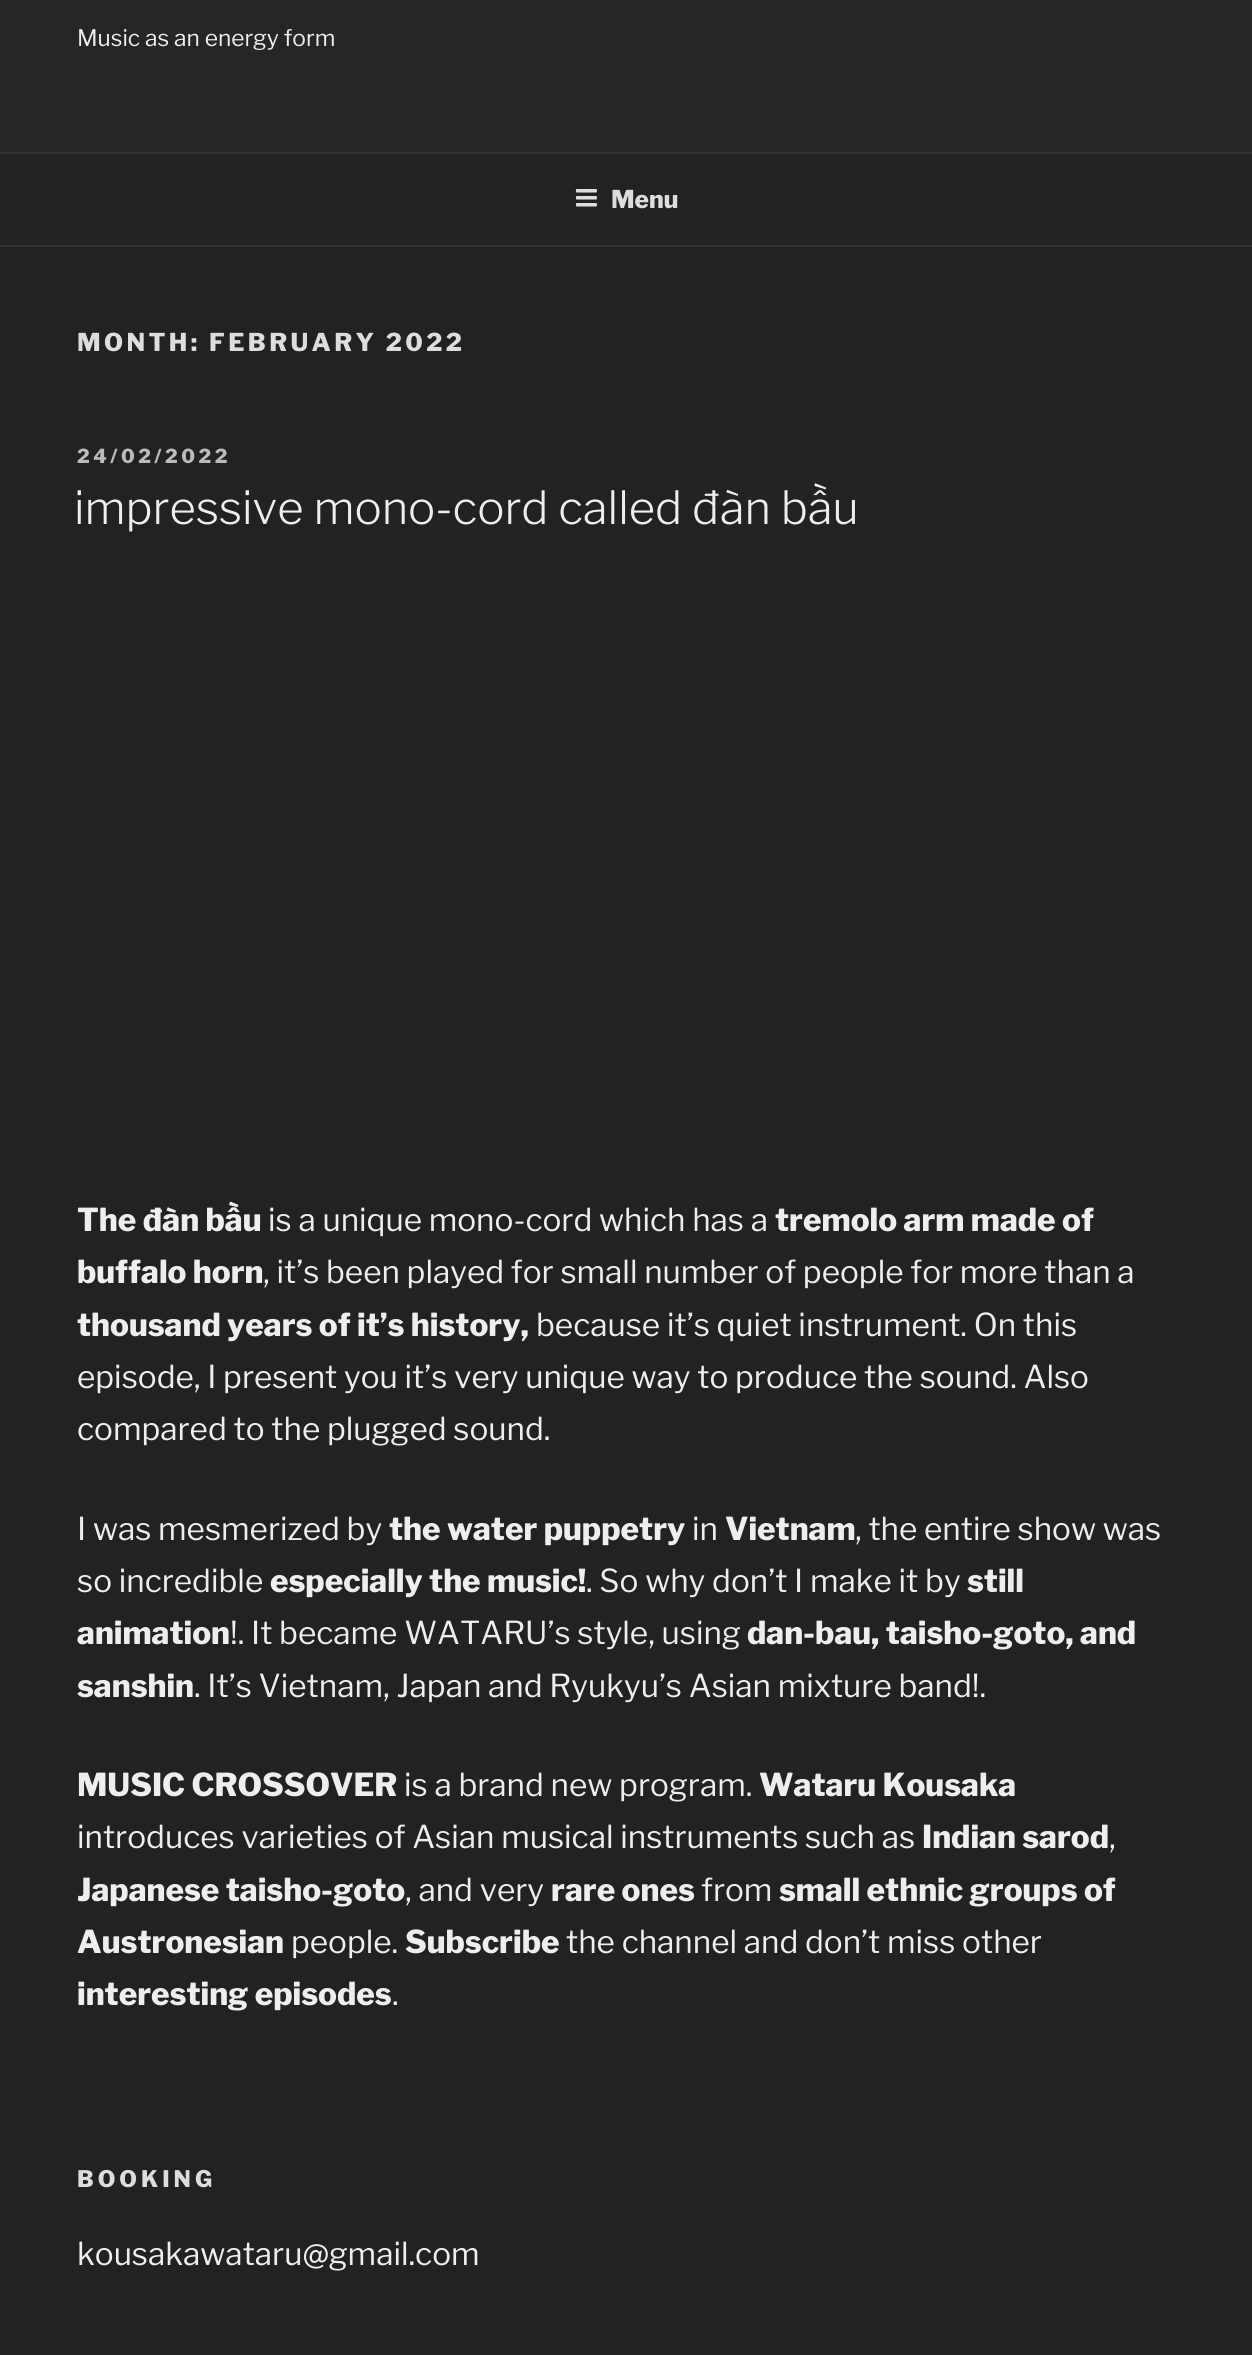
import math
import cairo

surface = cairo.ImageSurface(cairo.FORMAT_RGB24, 1252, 2355)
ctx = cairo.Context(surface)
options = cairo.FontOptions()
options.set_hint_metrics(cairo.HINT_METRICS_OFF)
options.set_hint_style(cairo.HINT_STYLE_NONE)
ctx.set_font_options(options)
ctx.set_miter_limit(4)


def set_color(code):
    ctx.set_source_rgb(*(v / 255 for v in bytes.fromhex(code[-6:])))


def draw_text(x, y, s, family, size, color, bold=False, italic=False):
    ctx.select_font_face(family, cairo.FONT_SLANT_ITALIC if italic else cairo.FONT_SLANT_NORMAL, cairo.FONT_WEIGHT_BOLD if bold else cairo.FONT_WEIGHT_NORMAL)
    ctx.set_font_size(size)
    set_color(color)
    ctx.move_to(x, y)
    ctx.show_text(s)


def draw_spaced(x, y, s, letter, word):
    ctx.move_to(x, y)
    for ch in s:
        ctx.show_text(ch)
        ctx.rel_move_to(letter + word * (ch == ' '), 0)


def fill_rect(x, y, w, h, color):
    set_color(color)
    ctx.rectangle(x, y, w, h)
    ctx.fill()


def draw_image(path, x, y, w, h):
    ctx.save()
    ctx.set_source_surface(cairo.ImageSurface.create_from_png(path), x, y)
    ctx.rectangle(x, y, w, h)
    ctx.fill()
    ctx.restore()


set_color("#222222")
ctx.paint()
fill_rect(0, 0, 1252, 152, "#262626")
draw_text(77, 46, "Music as an energy form", "Libre Franklin", 22.75, "#eeeeee")
fill_rect(0, 152, 1252, 2, "#333333")
fill_rect(0, 245, 1252, 2, "#333333")
draw_image("assets/img1.png", 575, 189, 22, 18)
draw_text(611, 208, "Menu", "Libre Franklin ExtraBold", 24.5, "#dddddd")
draw_spaced(77, 351, "MONTH: FEBRUARY 2022", 3.4, 0)
ctx.set_font_size(19.25)
set_color("#bbbbbb")
draw_spaced(77, 463, "24/02/2022", 3.5, 0)
draw_text(74, 524, "impressive mono-cord called đàn bầu", "Libre Franklin Light", 45.5, "#eeeeee")
draw_text(77, 1231, "The đàn bầu", "Libre Franklin ExtraBold", 31.5, "#eeeeee")
draw_text(268, 1231, "is a unique mono-cord which has a", "Libre Franklin", 31.5, "#eeeeee")
draw_text(775, 1231, "tremolo arm made of", "Libre Franklin ExtraBold", 31.5, "#eeeeee")
draw_text(77, 1283, "buffalo horn", "Libre Franklin ExtraBold", 31.5, "#eeeeee")
draw_text(263, 1283, ", it’s been played for small number of people for more than a", "Libre Franklin", 31.5, "#eeeeee")
draw_text(77, 1336, "thousand years of it’s history,", "Libre Franklin ExtraBold", 31.5, "#eeeeee")
draw_text(536, 1336, "because it’s quiet instrument. On this", "Libre Franklin", 31.5, "#eeeeee")
draw_text(77, 1388, "episode, I present you it’s very unique way to produce the sound. Also", "Libre Franklin", 31.5, "#eeeeee")
draw_text(77, 1440, "compared to the plugged sound.", "Libre Franklin", 31.5, "#eeeeee")
draw_text(77, 1540, "I was mesmerized by", "Libre Franklin", 31.5, "#eeeeee")
draw_text(389, 1540, "the water puppetry", "Libre Franklin ExtraBold", 31.5, "#eeeeee")
draw_text(692, 1540, "in", "Libre Franklin", 31.5, "#eeeeee")
draw_text(725, 1540, "Vietnam", "Libre Franklin ExtraBold", 31.5, "#eeeeee")
draw_text(855, 1540, ", the entire show was", "Libre Franklin", 31.5, "#eeeeee")
draw_text(77, 1592, "so incredible", "Libre Franklin", 31.5, "#eeeeee")
draw_text(270, 1592, "especially the music!", "Libre Franklin ExtraBold", 31.5, "#eeeeee")
draw_text(586, 1592, ". So why don’t I make it by", "Libre Franklin", 31.5, "#eeeeee")
draw_text(967, 1592, "still", "Libre Franklin ExtraBold", 31.5, "#eeeeee")
draw_text(77, 1644, "animation", "Libre Franklin ExtraBold", 31.5, "#eeeeee")
draw_text(230, 1644, "!. It became WATARU’s style, using", "Libre Franklin", 31.5, "#eeeeee")
draw_text(747, 1644, "dan-bau, taisho-goto, and", "Libre Franklin ExtraBold", 31.5, "#eeeeee")
draw_text(77, 1697, "sanshin", "Libre Franklin ExtraBold", 31.5, "#eeeeee")
draw_text(194, 1697, ". It’s Vietnam, Japan and Ryukyu’s Asian mixture band!.", "Libre Franklin", 31.5, "#eeeeee")
draw_text(77, 1796, "MUSIC CROSSOVER", "Libre Franklin ExtraBold", 31.5, "#eeeeee")
draw_text(404, 1796, "is a brand new program.", "Libre Franklin", 31.5, "#eeeeee")
draw_text(759, 1796, "Wataru Kousaka", "Libre Franklin ExtraBold", 31.5, "#eeeeee")
draw_text(77, 1848, "introduces varieties of Asian musical instruments such as", "Libre Franklin", 31.5, "#eeeeee")
draw_text(922, 1848, "Indian sarod", "Libre Franklin ExtraBold", 31.5, "#eeeeee")
draw_text(1109, 1848, ",", "Libre Franklin", 31.5, "#eeeeee")
draw_text(77, 1901, "Japanese taisho-goto", "Libre Franklin ExtraBold", 31.5, "#eeeeee")
draw_text(405, 1901, ", and very", "Libre Franklin", 31.5, "#eeeeee")
draw_text(551, 1901, "rare ones", "Libre Franklin ExtraBold", 31.5, "#eeeeee")
draw_text(701, 1901, "from", "Libre Franklin", 31.5, "#eeeeee")
draw_text(779, 1901, "small ethnic groups of", "Libre Franklin ExtraBold", 31.5, "#eeeeee")
draw_text(77, 1953, "Austronesian", "Libre Franklin ExtraBold", 31.5, "#eeeeee")
draw_text(291, 1953, "people.", "Libre Franklin", 31.5, "#eeeeee")
draw_text(405, 1953, "Subscribe", "Libre Franklin ExtraBold", 31.5, "#eeeeee")
draw_text(566, 1953, "the channel and don’t miss other", "Libre Franklin", 31.5, "#eeeeee")
draw_text(77, 2005, "interesting episodes", "Libre Franklin ExtraBold", 31.5, "#eeeeee")
draw_text(392, 2005, ".", "Libre Franklin", 31.5, "#eeeeee")
ctx.select_font_face("Libre Franklin ExtraBold")
ctx.set_font_size(22.75)
set_color("#dddddd")
draw_spaced(77, 2187, "BOOKING", 4, 0)
draw_text(77, 2265, "kousakawataru@gmail.com", "Libre Franklin", 31.5, "#eeeeee")
surface.write_to_png("output.png")
